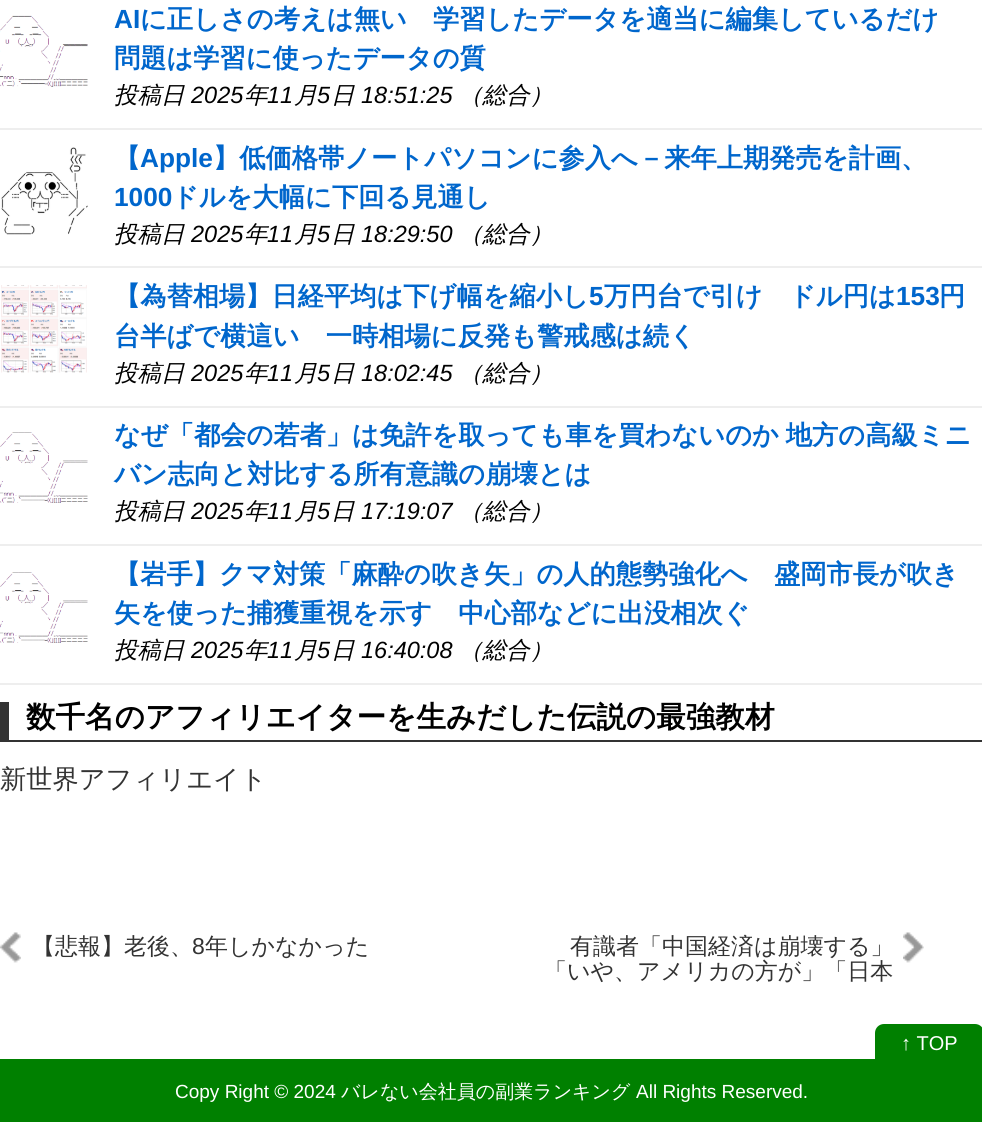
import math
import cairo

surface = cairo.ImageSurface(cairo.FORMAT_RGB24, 982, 1122)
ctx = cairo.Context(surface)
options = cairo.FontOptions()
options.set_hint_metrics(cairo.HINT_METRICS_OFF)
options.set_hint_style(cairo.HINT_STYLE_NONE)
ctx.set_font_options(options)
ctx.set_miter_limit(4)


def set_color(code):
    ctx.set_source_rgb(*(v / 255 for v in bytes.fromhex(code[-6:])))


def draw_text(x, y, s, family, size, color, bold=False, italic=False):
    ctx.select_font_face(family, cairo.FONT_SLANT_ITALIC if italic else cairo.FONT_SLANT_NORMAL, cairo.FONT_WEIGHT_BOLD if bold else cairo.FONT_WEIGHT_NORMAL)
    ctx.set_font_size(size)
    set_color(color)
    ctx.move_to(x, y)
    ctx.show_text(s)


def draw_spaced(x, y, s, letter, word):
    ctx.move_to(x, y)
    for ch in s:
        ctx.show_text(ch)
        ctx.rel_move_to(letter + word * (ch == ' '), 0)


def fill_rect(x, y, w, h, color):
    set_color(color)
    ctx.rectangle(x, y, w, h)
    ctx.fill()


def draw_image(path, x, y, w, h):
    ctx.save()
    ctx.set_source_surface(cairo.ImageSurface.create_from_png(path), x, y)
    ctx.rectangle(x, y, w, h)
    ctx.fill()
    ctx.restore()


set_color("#008000")
ctx.paint()
fill_rect(0, 0, 982, 1059, "#ffffff")
fill_rect(0, 128, 982, 2, "#eeeeee")
draw_image("assets/img1.png", 0, 15, 88, 72)
draw_text(114, 28, "AI", "Liberation Sans", 26.25, "#0066cc", bold=True)
draw_text(140, 28, "に正しさの考えは無い　学習したデータを適当に編集しているだけ", "WenQuanYi Zen Hei", 26.25, "#0066cc", bold=True)
draw_text(114, 67, "問題は学習に使ったデータの質", "WenQuanYi Zen Hei", 26.25, "#0066cc", bold=True)
draw_text(114, 103, "投稿日", "WenQuanYi Zen Hei Medium", 23.5, "#000000", italic=True)
draw_text(191, 103, "2025", "Liberation Sans", 23.5, "#000000", italic=True)
draw_text(244, 103, "年", "WenQuanYi Zen Hei Medium", 23.5, "#000000", italic=True)
draw_text(267, 103, "11", "Liberation Sans", 23.5, "#000000", italic=True)
draw_text(294, 103, "月", "WenQuanYi Zen Hei Medium", 23.5, "#000000", italic=True)
draw_text(317, 103, "5", "Liberation Sans", 23.5, "#000000", italic=True)
draw_text(331, 103, "日", "WenQuanYi Zen Hei Medium", 23.5, "#000000", italic=True)
draw_text(361, 103, "18:51:25", "Liberation Sans", 23.5, "#000000", italic=True)
draw_text(459, 103, "（総合）", "WenQuanYi Zen Hei Medium", 23.5, "#000000", italic=True)
fill_rect(0, 266, 982, 2, "#eeeeee")
draw_image("assets/img2.png", 1, 147, 87, 88)
draw_text(114, 167, "【", "WenQuanYi Zen Hei", 26.25, "#0066cc", bold=True)
draw_text(140, 167, "Apple", "Liberation Sans", 26.25, "#0066cc", bold=True)
draw_text(213, 167, "】低価格帯ノートパソコンに参入へ－来年上期発売を計画、", "WenQuanYi Zen Hei", 26.25, "#0066cc", bold=True)
draw_text(114, 206, "1000", "Liberation Sans", 26.25, "#0066cc", bold=True)
draw_text(172, 206, "ドルを大幅に下回る見通し", "WenQuanYi Zen Hei", 26.25, "#0066cc", bold=True)
draw_text(114, 242, "投稿日", "WenQuanYi Zen Hei Medium", 23.5, "#000000", italic=True)
draw_text(191, 242, "2025", "Liberation Sans", 23.5, "#000000", italic=True)
draw_text(244, 242, "年", "WenQuanYi Zen Hei Medium", 23.5, "#000000", italic=True)
draw_text(267, 242, "11", "Liberation Sans", 23.5, "#000000", italic=True)
draw_text(294, 242, "月", "WenQuanYi Zen Hei Medium", 23.5, "#000000", italic=True)
draw_text(317, 242, "5", "Liberation Sans", 23.5, "#000000", italic=True)
draw_text(331, 242, "日", "WenQuanYi Zen Hei Medium", 23.5, "#000000", italic=True)
draw_text(361, 242, "18:29:50", "Liberation Sans", 23.5, "#000000", italic=True)
draw_text(459, 242, "（総合）", "WenQuanYi Zen Hei Medium", 23.5, "#000000", italic=True)
fill_rect(0, 406, 982, 2, "#eeeeee")
draw_image("assets/img3.png", 1, 285, 86, 88)
draw_text(114, 305, "【為替相場】日経平均は下げ幅を縮小し", "WenQuanYi Zen Hei", 26.25, "#0066cc", bold=True)
draw_text(589, 305, "5", "Liberation Sans", 26.25, "#0066cc", bold=True)
draw_text(604, 305, "万円台で引け　ドル円は", "WenQuanYi Zen Hei", 26.25, "#0066cc", bold=True)
draw_text(896, 305, "153", "Liberation Sans", 26.25, "#0066cc", bold=True)
draw_text(939, 305, "円", "WenQuanYi Zen Hei", 26.25, "#0066cc", bold=True)
draw_text(114, 345, "台半ばで横這い　一時相場に反発も警戒感は続く", "WenQuanYi Zen Hei", 26.25, "#0066cc", bold=True)
draw_text(114, 381, "投稿日", "WenQuanYi Zen Hei Medium", 23.5, "#000000", italic=True)
draw_text(191, 381, "2025", "Liberation Sans", 23.5, "#000000", italic=True)
draw_text(244, 381, "年", "WenQuanYi Zen Hei Medium", 23.5, "#000000", italic=True)
draw_text(267, 381, "11", "Liberation Sans", 23.5, "#000000", italic=True)
draw_text(294, 381, "月", "WenQuanYi Zen Hei Medium", 23.5, "#000000", italic=True)
draw_text(317, 381, "5", "Liberation Sans", 23.5, "#000000", italic=True)
draw_text(331, 381, "日", "WenQuanYi Zen Hei Medium", 23.5, "#000000", italic=True)
draw_text(361, 381, "18:02:45", "Liberation Sans", 23.5, "#000000", italic=True)
draw_text(459, 381, "（総合）", "WenQuanYi Zen Hei Medium", 23.5, "#000000", italic=True)
fill_rect(0, 544, 982, 2, "#eeeeee")
draw_image("assets/img4.png", 0, 432, 88, 71)
ctx.select_font_face("WenQuanYi Zen Hei", cairo.FONT_SLANT_NORMAL, cairo.FONT_WEIGHT_BOLD)
ctx.set_font_size(26.25)
set_color("#0066cc")
draw_spaced(114, 444, "なぜ「都会の若者」は免許を取っても車を買わないのか 地方の高級ミニ", 0, -1)
draw_text(114, 483, "バン志向と対比する所有意識の崩壊とは", "WenQuanYi Zen Hei", 26.25, "#0066cc", bold=True)
draw_text(114, 519, "投稿日", "WenQuanYi Zen Hei Medium", 23.5, "#000000", italic=True)
draw_text(191, 519, "2025", "Liberation Sans", 23.5, "#000000", italic=True)
draw_text(244, 519, "年", "WenQuanYi Zen Hei Medium", 23.5, "#000000", italic=True)
draw_text(267, 519, "11", "Liberation Sans", 23.5, "#000000", italic=True)
draw_text(294, 519, "月", "WenQuanYi Zen Hei Medium", 23.5, "#000000", italic=True)
draw_text(317, 519, "5", "Liberation Sans", 23.5, "#000000", italic=True)
draw_text(331, 519, "日", "WenQuanYi Zen Hei Medium", 23.5, "#000000", italic=True)
draw_text(361, 519, "17:19:07", "Liberation Sans", 23.5, "#000000", italic=True)
draw_text(459, 519, "（総合）", "WenQuanYi Zen Hei Medium", 23.5, "#000000", italic=True)
fill_rect(0, 683, 982, 2, "#eeeeee")
draw_image("assets/img5.png", 0, 572, 88, 71)
draw_text(114, 583, "【岩手】クマ対策「麻酔の吹き矢」の人的態勢強化へ　盛岡市長が吹き", "WenQuanYi Zen Hei", 26.25, "#0066cc", bold=True)
draw_text(114, 622, "矢を使った捕獲重視を示す　中心部などに出没相次ぐ", "WenQuanYi Zen Hei", 26.25, "#0066cc", bold=True)
draw_text(114, 658, "投稿日", "WenQuanYi Zen Hei Medium", 23.5, "#000000", italic=True)
draw_text(191, 658, "2025", "Liberation Sans", 23.5, "#000000", italic=True)
draw_text(244, 658, "年", "WenQuanYi Zen Hei Medium", 23.5, "#000000", italic=True)
draw_text(267, 658, "11", "Liberation Sans", 23.5, "#000000", italic=True)
draw_text(294, 658, "月", "WenQuanYi Zen Hei Medium", 23.5, "#000000", italic=True)
draw_text(317, 658, "5", "Liberation Sans", 23.5, "#000000", italic=True)
draw_text(331, 658, "日", "WenQuanYi Zen Hei Medium", 23.5, "#000000", italic=True)
draw_text(361, 658, "16:40:08", "Liberation Sans", 23.5, "#000000", italic=True)
draw_text(459, 658, "（総合）", "WenQuanYi Zen Hei Medium", 23.5, "#000000", italic=True)
fill_rect(9, 740, 973, 2, "#333333")
fill_rect(0, 702, 9, 40, "#333333")
draw_text(26, 727, "数千名のアフィリエイターを生みだした伝説の最強教材", "WenQuanYi Zen Hei", 29.55, "#000000", bold=True)
draw_text(0, 788, "新世界アフィリエイト", "WenQuanYi Zen Hei Medium", 26.25, "#333333")
draw_image("assets/img6.png", 0, 932, 21, 31)
draw_text(32, 954, "【悲報】老後、", "WenQuanYi Zen Hei Medium", 23, "#333333")
draw_text(192, 954, "8", "Liberation Sans", 23, "#333333")
draw_text(205, 954, "年しかなかった", "WenQuanYi Zen Hei Medium", 23, "#333333")
draw_image("assets/img7.png", 903, 932, 21, 31)
draw_text(570, 954, "有識者「中国経済は崩壊する」", "WenQuanYi Zen Hei Medium", 23, "#333333")
draw_text(544, 979, "「いや、アメリカの方が」「日本", "WenQuanYi Zen Hei Medium", 23, "#333333")
set_color("#008000")
ctx.new_path()
ctx.move_to(884, 1024)
ctx.line_to(975, 1024)
ctx.curve_to(980, 1024, 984, 1028, 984, 1033)
ctx.line_to(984, 1064)
ctx.line_to(875, 1064)
ctx.line_to(875, 1033)
ctx.curve_to(875, 1028, 879, 1024, 884, 1024)
ctx.close_path()
ctx.fill()
draw_text(901, 1050, "↑ TOP", "Liberation Sans", 20, "#ffffff")
draw_text(175, 1098, "Copy Right © 2024", "Liberation Sans", 19, "#ffffff")
draw_text(341, 1098, "バレない会社員の副業ランキング", "WenQuanYi Zen Hei Medium", 19, "#ffffff")
draw_text(636, 1098, "All Rights Reserved.", "Liberation Sans", 19, "#ffffff")
surface.write_to_png("output.png")
